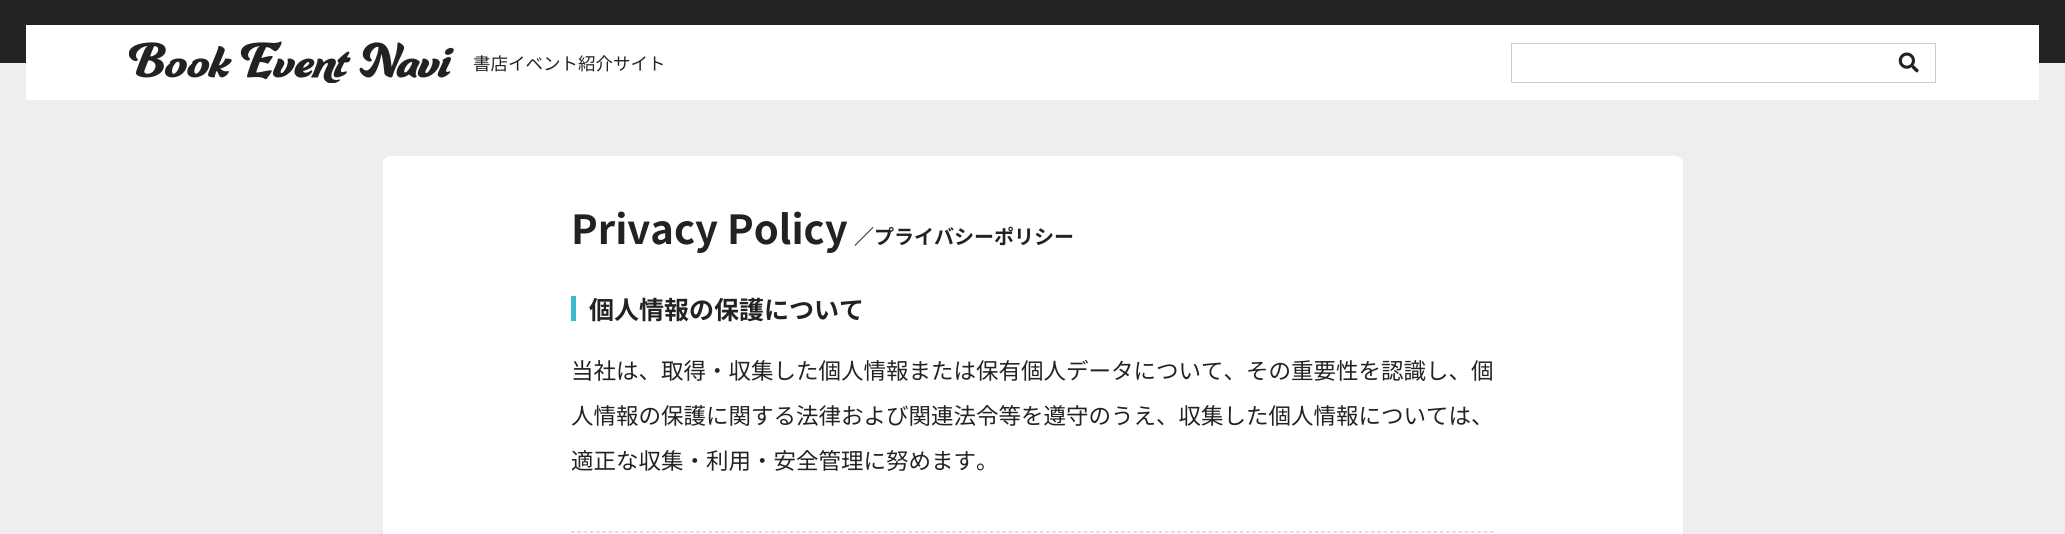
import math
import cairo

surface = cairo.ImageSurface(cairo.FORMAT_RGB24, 2065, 534)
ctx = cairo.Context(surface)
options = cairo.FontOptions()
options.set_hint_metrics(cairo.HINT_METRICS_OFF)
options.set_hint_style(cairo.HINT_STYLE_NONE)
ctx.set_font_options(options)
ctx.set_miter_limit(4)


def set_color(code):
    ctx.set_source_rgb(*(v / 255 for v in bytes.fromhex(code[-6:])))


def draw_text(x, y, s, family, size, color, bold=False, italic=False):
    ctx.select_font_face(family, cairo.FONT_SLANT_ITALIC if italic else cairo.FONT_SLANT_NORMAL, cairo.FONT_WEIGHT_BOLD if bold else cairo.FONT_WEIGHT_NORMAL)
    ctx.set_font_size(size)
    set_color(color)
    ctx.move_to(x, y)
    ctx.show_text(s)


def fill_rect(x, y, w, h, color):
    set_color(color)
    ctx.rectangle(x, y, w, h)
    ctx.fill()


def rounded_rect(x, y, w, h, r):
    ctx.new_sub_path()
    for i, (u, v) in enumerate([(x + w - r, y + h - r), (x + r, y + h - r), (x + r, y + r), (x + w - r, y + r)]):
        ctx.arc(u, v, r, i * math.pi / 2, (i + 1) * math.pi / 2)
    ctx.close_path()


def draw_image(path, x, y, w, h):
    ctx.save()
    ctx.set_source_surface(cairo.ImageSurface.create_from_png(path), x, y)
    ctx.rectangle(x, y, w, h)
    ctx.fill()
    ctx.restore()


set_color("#eeeeee")
ctx.paint()
fill_rect(0, 0, 2065, 63, "#222222")
fill_rect(26, 25, 2013, 75, "#ffffff")
draw_image("assets/img1.png", 129, 41, 325, 42)
draw_text(473, 70, "書店イベント紹介サイト", "Noto Sans JP", 17.5, "#222222")
ctx.rectangle(1511.5, 43.5, 424, 39)
set_color("#cccccc")
ctx.set_line_width(1)
ctx.stroke()
draw_image("assets/img2.png", 1898, 52, 21, 21)
set_color("#ffffff")
rounded_rect(383, 156, 1300, 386, 8)
ctx.fill()
draw_text(571, 244, "Privacy Policy", "Noto Sans JP", 40, "#222222", bold=True)
draw_text(854, 244, "／プライバシーポリシー", "Noto Sans JP", 20, "#222222", bold=True)
fill_rect(571, 296, 5, 25, "#3eb9cb")
draw_text(589, 319, "個人情報の保護について", "Noto Sans JP", 25, "#222222", bold=True)
ctx.new_path()
ctx.move_to(571, 532)
ctx.line_to(1494, 532)
set_color("#cccccc")
ctx.set_line_width(1.2)
ctx.set_dash([3.75, 2.5])
ctx.stroke()
draw_text(571, 379, "当社は、取得・収集した個人情報または保有個人データについて、その重要性を認識し、個", "Noto Sans JP", 22.5, "#222222")
draw_text(571, 424, "人情報の保護に関する法律および関連法令等を遵守のうえ、収集した個人情報については、", "Noto Sans JP", 22.5, "#222222")
draw_text(571, 469, "適正な収集・利用・安全管理に努めます。", "Noto Sans JP", 22.5, "#222222")
surface.write_to_png("output.png")
